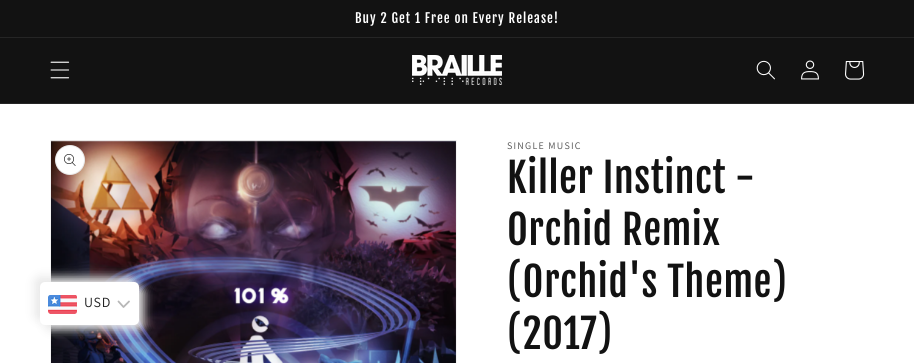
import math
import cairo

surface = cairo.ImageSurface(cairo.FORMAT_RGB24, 914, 363)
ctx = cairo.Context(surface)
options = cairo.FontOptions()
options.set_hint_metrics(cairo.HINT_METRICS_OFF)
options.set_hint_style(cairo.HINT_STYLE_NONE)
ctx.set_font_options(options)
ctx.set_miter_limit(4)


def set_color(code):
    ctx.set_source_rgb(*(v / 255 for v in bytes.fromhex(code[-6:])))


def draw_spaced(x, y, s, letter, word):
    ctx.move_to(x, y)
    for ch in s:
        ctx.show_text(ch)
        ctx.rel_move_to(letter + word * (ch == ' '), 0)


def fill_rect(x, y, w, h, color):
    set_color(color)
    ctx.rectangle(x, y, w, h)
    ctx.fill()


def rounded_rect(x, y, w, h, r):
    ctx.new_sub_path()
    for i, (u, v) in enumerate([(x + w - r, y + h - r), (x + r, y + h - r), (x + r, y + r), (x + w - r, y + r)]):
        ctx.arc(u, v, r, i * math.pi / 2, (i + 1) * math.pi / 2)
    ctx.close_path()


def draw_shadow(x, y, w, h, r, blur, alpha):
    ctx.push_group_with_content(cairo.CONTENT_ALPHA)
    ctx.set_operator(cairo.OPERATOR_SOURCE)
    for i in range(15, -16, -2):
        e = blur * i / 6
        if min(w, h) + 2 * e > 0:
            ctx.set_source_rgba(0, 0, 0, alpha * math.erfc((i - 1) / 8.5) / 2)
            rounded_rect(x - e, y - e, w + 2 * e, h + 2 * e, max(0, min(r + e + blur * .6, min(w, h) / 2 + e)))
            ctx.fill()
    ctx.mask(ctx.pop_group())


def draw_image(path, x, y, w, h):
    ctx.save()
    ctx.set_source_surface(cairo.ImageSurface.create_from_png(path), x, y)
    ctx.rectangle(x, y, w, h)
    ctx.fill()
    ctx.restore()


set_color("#ffffff")
ctx.paint()
fill_rect(0, 0, 914, 37, "#121212")
fill_rect(0, 37, 914, 1, "#252525")
ctx.select_font_face("Fjalla One")
ctx.set_font_size(13)
set_color("#ffffff")
draw_spaced(355, 23, "Buy 2 Get 1 Free on Every Release!", 1, 0)
fill_rect(0, 38, 914, 65, "#121212")
fill_rect(0, 103, 914, 1, "#252525")
draw_image("assets/img1.png", 50, 61, 20, 18)
draw_image("assets/img2.png", 412, 55, 90, 30)
draw_image("assets/img3.png", 756, 60, 19, 20)
draw_image("assets/img4.png", 801, 60, 18, 20)
draw_image("assets/img5.png", 845, 61, 20, 19)
ctx.rectangle(50.5, 140.5, 406, 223)
set_color("#f3f3f3")
ctx.set_line_width(1)
ctx.stroke()
draw_image("assets/img7.png", 51, 140, 405, 223)
set_color("#e8e8e8")
draw_shadow(35, 277, 99, 43, 5, 5, 1)
draw_shadow(45, 287, 99, 43, 5, 5, 1)
set_color("#ffffff")
rounded_rect(40, 282, 99, 43, 5)
ctx.fill()
draw_image("assets/img6.png", 48, 295, 29, 19)
ctx.select_font_face("Assistant")
ctx.set_font_size(14)
set_color("#1e1e1e")
draw_spaced(84, 307, "USD", 0.6, 0)
ctx.new_path()
ctx.move_to(118.5, 301.5)
ctx.line_to(123.5, 307)
ctx.line_to(129, 301.5)
set_color("#b7b7b7")
ctx.set_line_width(1.8)
ctx.set_line_cap(cairo.LINE_CAP_ROUND)
ctx.set_line_join(cairo.LINE_JOIN_ROUND)
ctx.stroke()
set_color("#ffffff")
ctx.arc(70, 160, 15, 0, 2 * math.pi)
ctx.fill()
ctx.arc(70, 160, 14.5, 0, 2 * math.pi)
ctx.set_source_rgba(0.071, 0.071, 0.071, 0.1)
ctx.set_line_width(1)
ctx.set_line_cap(cairo.LINE_CAP_BUTT)
ctx.set_line_join(cairo.LINE_JOIN_MITER)
ctx.stroke()
draw_image("assets/img8.png", 64, 154, 12, 12)
ctx.set_font_size(10)
set_color("#4d4d4d")
draw_spaced(507, 149, "SINGLE MUSIC", 1.25, 0)
ctx.select_font_face("Fjalla One")
ctx.set_font_size(40)
set_color("#121212")
draw_spaced(507, 193, "Killer Instinct -", 0.6, 0)
draw_spaced(507, 245, "Orchid Remix", 0.6, 0)
draw_spaced(507, 297, "(Orchid's Theme)", 0.6, 0)
draw_spaced(507, 349, "(2017)", 0.6, 0)
surface.write_to_png("output.png")
